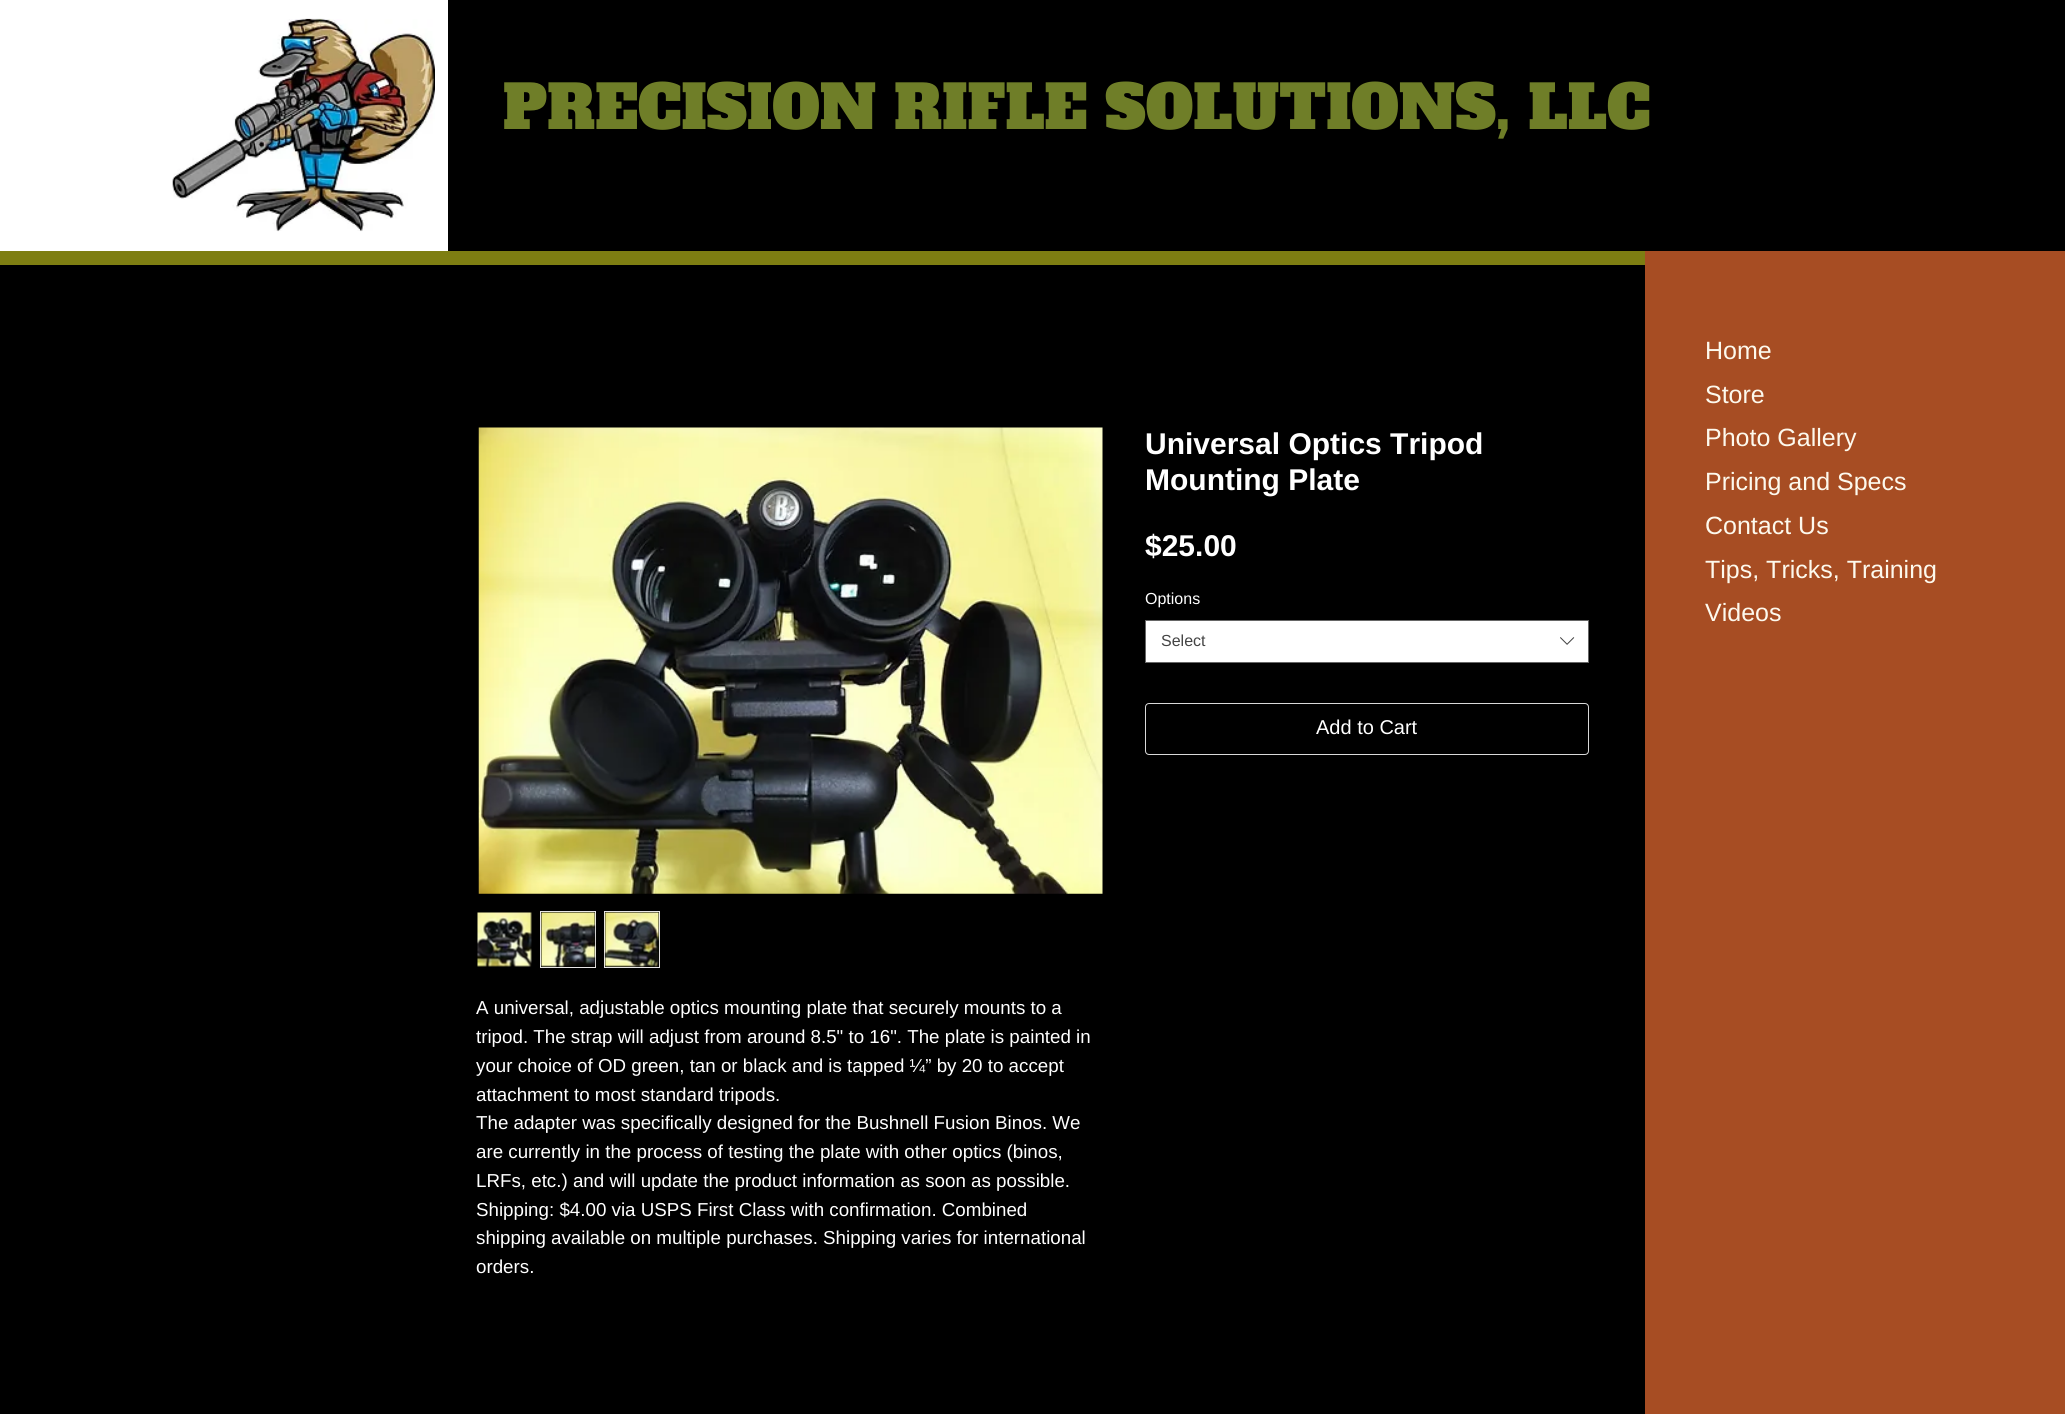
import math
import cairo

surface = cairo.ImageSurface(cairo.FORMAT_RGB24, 2065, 1414)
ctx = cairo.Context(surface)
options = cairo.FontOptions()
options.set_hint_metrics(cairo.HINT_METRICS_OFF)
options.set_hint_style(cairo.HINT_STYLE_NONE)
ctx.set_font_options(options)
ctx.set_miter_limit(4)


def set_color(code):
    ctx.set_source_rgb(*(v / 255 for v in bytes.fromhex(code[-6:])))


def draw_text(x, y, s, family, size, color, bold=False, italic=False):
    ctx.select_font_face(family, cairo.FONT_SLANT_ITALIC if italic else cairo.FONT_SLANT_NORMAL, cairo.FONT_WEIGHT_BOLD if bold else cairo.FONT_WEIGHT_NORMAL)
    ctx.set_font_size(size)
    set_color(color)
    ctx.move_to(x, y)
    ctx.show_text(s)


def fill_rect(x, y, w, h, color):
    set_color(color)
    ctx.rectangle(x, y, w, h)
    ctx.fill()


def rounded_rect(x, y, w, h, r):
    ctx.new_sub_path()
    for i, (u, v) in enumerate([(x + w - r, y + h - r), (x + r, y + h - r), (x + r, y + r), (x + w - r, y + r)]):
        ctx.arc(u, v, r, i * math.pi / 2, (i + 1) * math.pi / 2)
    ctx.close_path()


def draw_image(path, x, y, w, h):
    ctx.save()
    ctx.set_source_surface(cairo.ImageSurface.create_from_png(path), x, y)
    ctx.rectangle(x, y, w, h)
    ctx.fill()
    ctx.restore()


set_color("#7e7e12")
ctx.paint()
fill_rect(0, 0, 448, 251, "#ffffff")
draw_image("assets/img1.png", 172, 18, 263, 214)
fill_rect(448, 0, 1617, 251, "#000000")
draw_text(503, 129, "PRECISION RIFLE SOLUTIONS, LLC", "Alfa Slab One", 60, "#6f7e28")
fill_rect(0, 265, 1645, 1149, "#000000")
fill_rect(1645, 251, 420, 1163, "#a74d23")
draw_text(1145, 454, "Universal Optics Tripod", "Liberation Sans", 30, "#ffffff", bold=True)
draw_text(1145, 490, "Mounting Plate", "Liberation Sans", 30, "#ffffff", bold=True)
draw_text(1145, 556, "$25.00", "Liberation Sans", 30, "#ffffff", bold=True)
draw_text(1145, 604, "Options", "Liberation Sans", 16, "#ffffff")
ctx.rectangle(1145.5, 620.5, 443, 42)
ctx.fill_preserve()
set_color("#666666")
ctx.set_line_width(1)
ctx.stroke()
draw_text(1161, 646, "Select", "Liberation Sans", 16, "#444444")
draw_image("assets/img2.png", 1560, 637, 15, 8)
rounded_rect(1145.5, 703.5, 443, 51, 3.5)
set_color("#d9d9d9")
ctx.stroke()
draw_text(1316, 734, "Add to Cart", "Liberation Sans", 20, "#ffffff")
draw_image("assets/img3.png", 478, 427, 625, 467)
draw_image("assets/img4.png", 477, 912, 55, 55)
ctx.rectangle(540.5, 911.5, 55, 56)
set_color("#e8e6e6")
ctx.stroke()
draw_image("assets/img5.png", 541, 912, 55, 55)
ctx.rectangle(604.5, 911.5, 55, 56)
ctx.stroke()
draw_image("assets/img6.png", 604, 912, 56, 55)
draw_text(476, 1014, "A universal, adjustable optics mounting plate that securely mounts to a", "Liberation Sans", 18.75, "#ffffff")
draw_text(476, 1043, "tripod. The strap will adjust from around 8.5\" to 16\". The plate is painted in", "Liberation Sans", 18.75, "#ffffff")
draw_text(476, 1072, "your choice of OD green, tan or black and is tapped ¼” by 20 to accept", "Liberation Sans", 18.75, "#ffffff")
draw_text(476, 1101, "attachment to most standard tripods.", "Liberation Sans", 18.75, "#ffffff")
draw_text(476, 1129, "The adapter was specifically designed for the Bushnell Fusion Binos. We", "Liberation Sans", 18.75, "#ffffff")
draw_text(476, 1158, "are currently in the process of testing the plate with other optics (binos,", "Liberation Sans", 18.75, "#ffffff")
draw_text(476, 1187, "LRFs, etc.) and will update the product information as soon as possible.", "Liberation Sans", 18.75, "#ffffff")
draw_text(476, 1216, "Shipping: $4.00 via USPS First Class with confirmation. Combined", "Liberation Sans", 18.75, "#ffffff")
draw_text(476, 1244, "shipping available on multiple purchases. Shipping varies for international", "Liberation Sans", 18.75, "#ffffff")
draw_text(476, 1273, "orders.", "Liberation Sans", 18.75, "#ffffff")
draw_text(1705, 359, "Home", "Liberation Sans", 25, "#fdf9ed")
draw_text(1705, 403, "Store", "Liberation Sans", 25, "#fdf9ed")
draw_text(1705, 446, "Photo Gallery", "Liberation Sans", 25, "#fdf9ed")
draw_text(1705, 490, "Pricing and Specs", "Liberation Sans", 25, "#fdf9ed")
draw_text(1705, 534, "Contact Us", "Liberation Sans", 25, "#fdf9ed")
draw_text(1705, 578, "Tips, Tricks, Training", "Liberation Sans", 25, "#fdf9ed")
draw_text(1705, 621, "Videos", "Liberation Sans", 25, "#fdf9ed")
surface.write_to_png("output.png")
